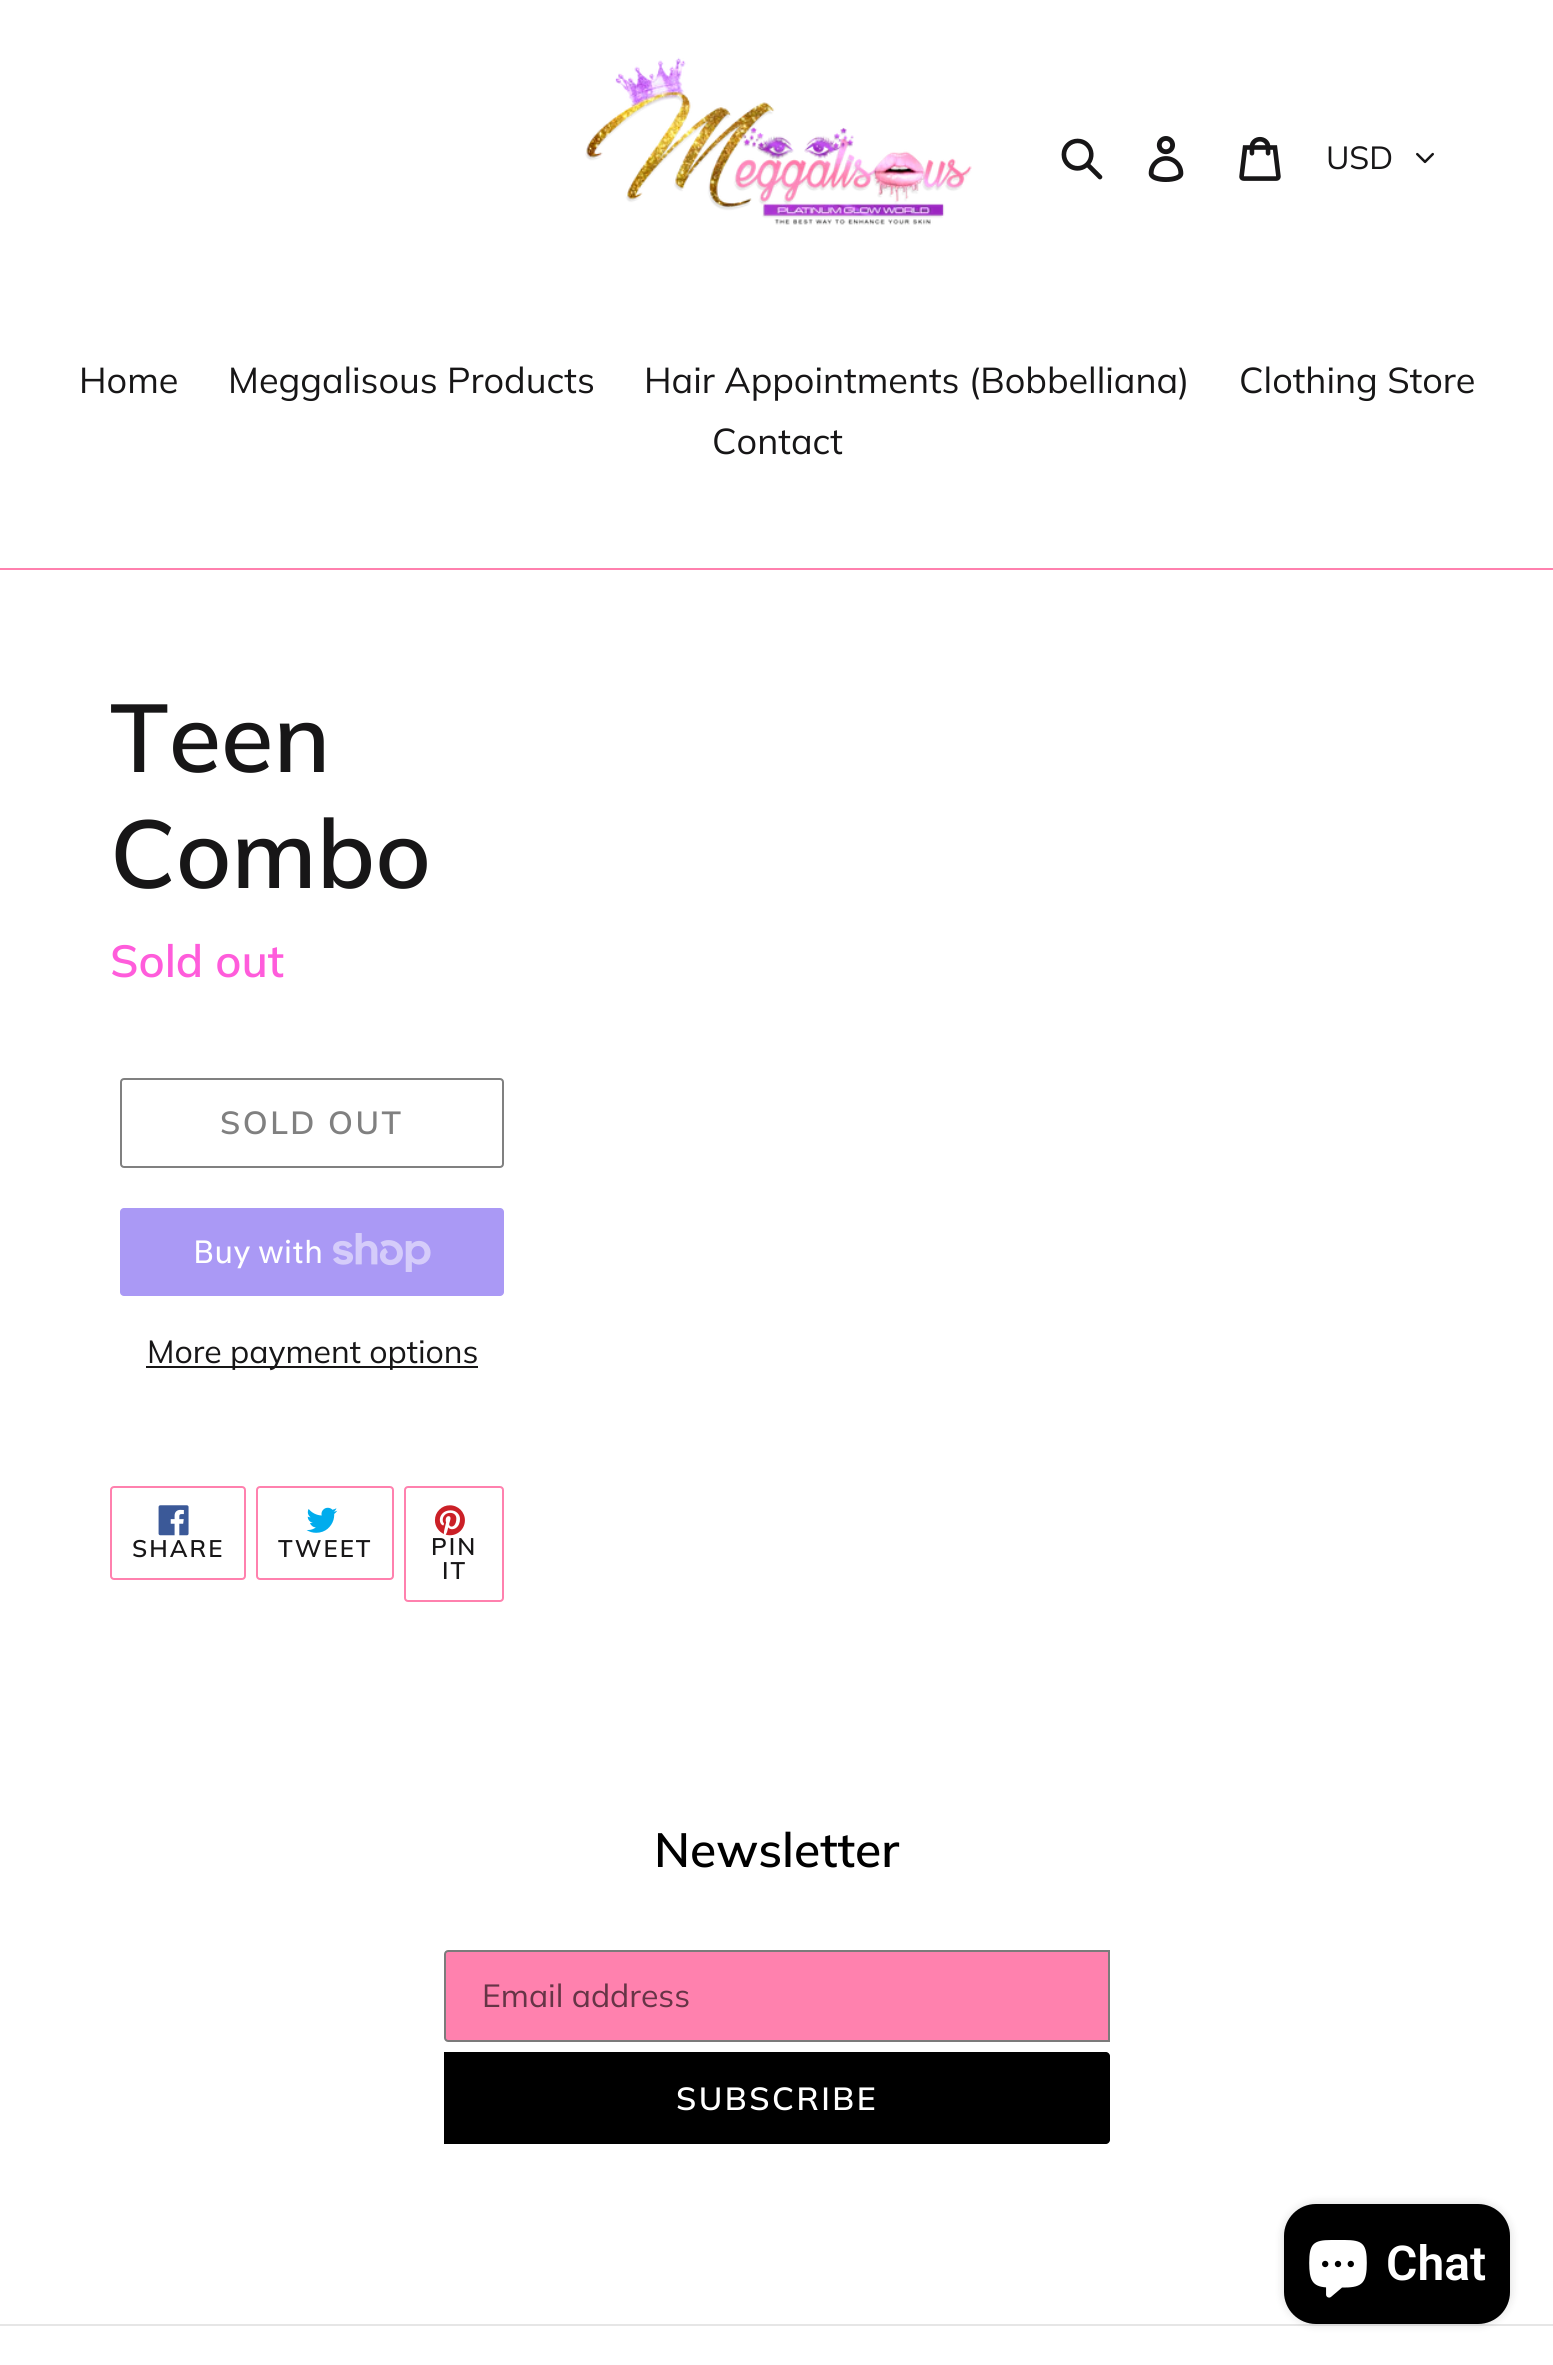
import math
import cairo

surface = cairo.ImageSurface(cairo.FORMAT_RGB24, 1553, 2365)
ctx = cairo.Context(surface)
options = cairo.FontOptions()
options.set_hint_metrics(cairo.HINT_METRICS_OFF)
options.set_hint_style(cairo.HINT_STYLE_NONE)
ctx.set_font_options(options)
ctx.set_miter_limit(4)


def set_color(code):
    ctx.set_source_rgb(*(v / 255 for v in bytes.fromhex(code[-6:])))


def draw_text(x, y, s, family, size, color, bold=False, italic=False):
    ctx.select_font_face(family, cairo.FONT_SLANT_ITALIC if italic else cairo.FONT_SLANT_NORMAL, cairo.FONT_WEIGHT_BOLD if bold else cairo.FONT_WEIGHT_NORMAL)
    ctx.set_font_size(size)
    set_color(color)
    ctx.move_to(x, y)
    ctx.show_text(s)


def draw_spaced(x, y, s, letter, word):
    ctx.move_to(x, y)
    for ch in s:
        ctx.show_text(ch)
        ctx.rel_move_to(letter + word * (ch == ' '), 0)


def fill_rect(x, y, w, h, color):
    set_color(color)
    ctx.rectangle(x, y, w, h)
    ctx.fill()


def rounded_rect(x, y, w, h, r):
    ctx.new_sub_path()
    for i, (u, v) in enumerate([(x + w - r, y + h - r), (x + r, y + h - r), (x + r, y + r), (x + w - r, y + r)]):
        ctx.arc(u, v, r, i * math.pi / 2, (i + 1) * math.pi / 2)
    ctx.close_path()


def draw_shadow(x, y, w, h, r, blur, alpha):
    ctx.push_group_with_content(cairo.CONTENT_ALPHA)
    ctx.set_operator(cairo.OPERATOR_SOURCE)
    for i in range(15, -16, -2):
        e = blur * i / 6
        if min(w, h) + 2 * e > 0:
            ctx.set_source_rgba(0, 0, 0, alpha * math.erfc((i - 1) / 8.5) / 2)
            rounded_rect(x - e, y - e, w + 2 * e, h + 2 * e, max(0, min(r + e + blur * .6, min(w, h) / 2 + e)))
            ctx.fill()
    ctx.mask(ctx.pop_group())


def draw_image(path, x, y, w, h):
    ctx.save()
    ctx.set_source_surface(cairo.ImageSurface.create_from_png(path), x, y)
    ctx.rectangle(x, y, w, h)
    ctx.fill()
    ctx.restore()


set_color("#ffffff")
ctx.paint()
draw_image("assets/img1.png", 585, 57, 387, 168)
draw_image("assets/img2.png", 1061, 138, 42, 42)
draw_image("assets/img3.png", 1148, 136, 36, 46)
draw_image("assets/img4.png", 1239, 136, 42, 45)
draw_text(1326, 169, "USD", "Muli", 32, "#171617")
draw_image("assets/img5.png", 1416, 152, 18, 12)
fill_rect(0, 568, 1553, 2, "#ff81ae")
draw_text(79, 393, "Home", "Muli", 36, "#171617")
draw_text(228, 393, "Meggalisous Products", "Muli", 36, "#171617")
draw_text(644, 393, "Hair Appointments (Bobbelliana)", "Muli", 36, "#171617")
draw_text(1239, 393, "Clothing Store", "Muli", 36, "#171617")
draw_text(712, 454, "Contact", "Muli", 36, "#171617")
draw_text(110, 772, "Teen", "Muli SemiBold", 96, "#171617")
draw_text(110, 888, "Combo", "Muli SemiBold", 96, "#171617")
draw_text(110, 977, "Sold out", "Muli SemiBold", 45, "#ff5cdb")
rounded_rect(121, 1079, 382, 88, 3)
set_color("#808080")
ctx.stroke()
ctx.set_font_size(32)
draw_spaced(220, 1134, "SOLD OUT", 2.5, 0)
set_color("#aa99f5")
rounded_rect(120, 1208, 384, 88, 4)
ctx.fill()
draw_text(193, 1263, "Buy with", "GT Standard", 32, "#ffffff")
draw_image("assets/img6.png", 333, 1233, 98, 39)
fill_rect(146, 1366, 332, 2, "#171617")
draw_text(147, 1363, "More payment options", "Muli", 32, "#171617")
rounded_rect(111, 1487, 134, 92, 3)
set_color("#ff81ae")
ctx.stroke()
draw_image("assets/img7.png", 158, 1505, 31, 31)
ctx.select_font_face("Muli SemiBold")
ctx.set_font_size(24)
set_color("#171617")
draw_spaced(132, 1557, "SHARE", 2, 0)
rounded_rect(257, 1487, 136, 92, 3)
set_color("#ff81ae")
ctx.stroke()
draw_image("assets/img8.png", 306, 1507, 32, 26)
set_color("#171617")
draw_spaced(278, 1557, "TWEET", 2, 0)
rounded_rect(405, 1487, 98, 114, 3)
set_color("#ff81ae")
ctx.stroke()
draw_image("assets/img9.png", 434, 1505, 31, 31)
set_color("#171617")
draw_spaced(431, 1555, "PIN", 2, 0)
draw_spaced(442, 1579, "IT", 2, 0)
draw_text(654, 1867, "Newsletter", "Muli SemiBold", 48, "#000000")
set_color("#ff81ae")
ctx.new_path()
ctx.move_to(448, 1951)
ctx.line_to(1109, 1951)
ctx.line_to(1109, 2041)
ctx.line_to(448, 2041)
ctx.curve_to(446.5, 2041, 445, 2039.5, 445, 2038)
ctx.line_to(445, 1954)
ctx.curve_to(445, 1952.5, 446.5, 1951, 448, 1951)
ctx.close_path()
ctx.fill_preserve()
set_color("#7c7b7b")
ctx.stroke()
draw_text(482, 2007, "Email address", "Muli", 32, "#663446")
set_color("#000000")
ctx.new_path()
ctx.move_to(444, 2052)
ctx.line_to(1106, 2052)
ctx.curve_to(1108, 2052, 1110, 2054, 1110, 2056)
ctx.line_to(1110, 2140)
ctx.curve_to(1110, 2142, 1108, 2144, 1106, 2144)
ctx.line_to(444, 2144)
ctx.close_path()
ctx.fill()
ctx.select_font_face("Muli SemiBold")
set_color("#ffffff")
draw_spaced(676, 2110, "SUBSCRIBE", 2.5, 0)
fill_rect(0, 2324, 1553, 2, "#e6e6e6")
set_color("#000000")
draw_shadow(1284, 2204, 226, 120, 32, 5, 0.15)
set_color("#000000")
rounded_rect(1284, 2204, 226, 120, 32)
ctx.fill()
draw_image("assets/img10.png", 1309, 2240, 58, 58)
draw_text(1386, 2280, "Chat", "Roboto SemiBold", 48, "#ffffff")
surface.write_to_png("output.png")
